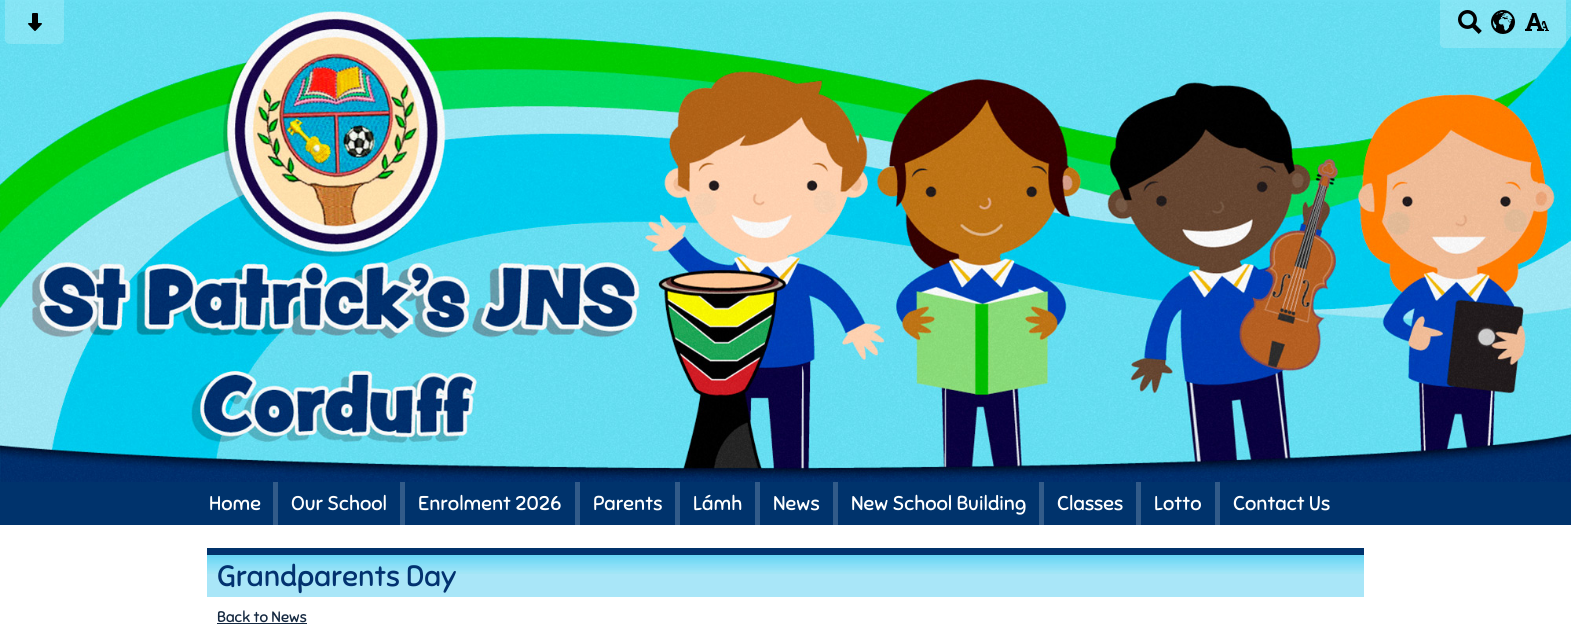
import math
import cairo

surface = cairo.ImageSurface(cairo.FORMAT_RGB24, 1571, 636)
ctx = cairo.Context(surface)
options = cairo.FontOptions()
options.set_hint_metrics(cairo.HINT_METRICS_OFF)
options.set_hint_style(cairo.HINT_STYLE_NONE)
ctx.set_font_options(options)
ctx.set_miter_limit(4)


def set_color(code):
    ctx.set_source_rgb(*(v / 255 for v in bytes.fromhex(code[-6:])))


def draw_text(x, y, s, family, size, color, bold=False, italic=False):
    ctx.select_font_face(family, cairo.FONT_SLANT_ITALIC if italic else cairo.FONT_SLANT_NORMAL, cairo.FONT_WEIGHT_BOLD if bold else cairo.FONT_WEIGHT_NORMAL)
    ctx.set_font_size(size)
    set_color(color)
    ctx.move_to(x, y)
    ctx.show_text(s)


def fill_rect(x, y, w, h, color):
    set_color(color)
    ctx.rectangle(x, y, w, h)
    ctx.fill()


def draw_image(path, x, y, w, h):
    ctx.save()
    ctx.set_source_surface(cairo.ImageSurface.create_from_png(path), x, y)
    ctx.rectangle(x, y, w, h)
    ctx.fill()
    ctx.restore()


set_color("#ffffff")
ctx.paint()
draw_image("assets/img1.png", 0, 0, 1571, 482)
ctx.set_source_rgba(1, 1, 1, 0.2)
ctx.new_path()
ctx.move_to(5, 0)
ctx.line_to(64, 0)
ctx.line_to(64, 39)
ctx.curve_to(64, 42, 62, 44, 59, 44)
ctx.line_to(10, 44)
ctx.curve_to(7, 44, 5, 42, 5, 39)
ctx.close_path()
ctx.fill()
draw_image("assets/img2.png", 28, 13, 14, 18)
ctx.new_path()
ctx.move_to(1440, 0)
ctx.line_to(1566, 0)
ctx.line_to(1566, 43)
ctx.curve_to(1566, 46, 1564, 48, 1561, 48)
ctx.line_to(1445, 48)
ctx.curve_to(1442, 48, 1440, 46, 1440, 43)
ctx.close_path()
ctx.fill()
draw_image("assets/img3.png", 1458, 10, 24, 24)
draw_image("assets/img4.png", 1491, 10, 24, 24)
draw_image("assets/img5.png", 1525, 13, 24, 18)
fill_rect(0, 482, 1571, 43, "#00336c")
fill_rect(273, 482, 5, 43, "#325b89")
draw_text(209, 510, "Home", "Sniglet", 20, "#ffffff")
fill_rect(400, 482, 5, 43, "#325b89")
draw_text(291, 510, "Our School", "Sniglet", 20, "#ffffff")
fill_rect(575, 482, 5, 43, "#325b89")
draw_text(418, 510, "Enrolment 2026", "Sniglet", 20, "#ffffff")
fill_rect(675, 482, 5, 43, "#325b89")
draw_text(593, 510, "Parents", "Sniglet", 20, "#ffffff")
fill_rect(755, 482, 5, 43, "#325b89")
draw_text(693, 510, "Lámh", "Sniglet", 20, "#ffffff")
fill_rect(833, 482, 5, 43, "#325b89")
draw_text(773, 510, "News", "Sniglet", 20, "#ffffff")
fill_rect(1039, 482, 5, 43, "#325b89")
draw_text(851, 510, "New School Building", "Sniglet", 20, "#ffffff")
fill_rect(1136, 482, 5, 43, "#325b89")
draw_text(1057, 510, "Classes", "Sniglet", 20, "#ffffff")
fill_rect(1215, 482, 5, 43, "#325b89")
draw_text(1154, 510, "Lotto", "Sniglet", 20, "#ffffff")
draw_text(1233, 510, "Contact Us", "Sniglet", 20, "#ffffff")
fill_rect(207, 574, 1157, 23, "#a9e6f8")
draw_image("assets/img6.png", 207, 548, 1157, 26)
draw_text(217, 586, "Grandparents Day", "Sniglet", 29.5, "#023270")
draw_text(217, 622, "Back to News", "Sniglet", 15.25, "#152941")
fill_rect(217, 623, 90, 1, "#152941")
surface.write_to_png("output.png")
